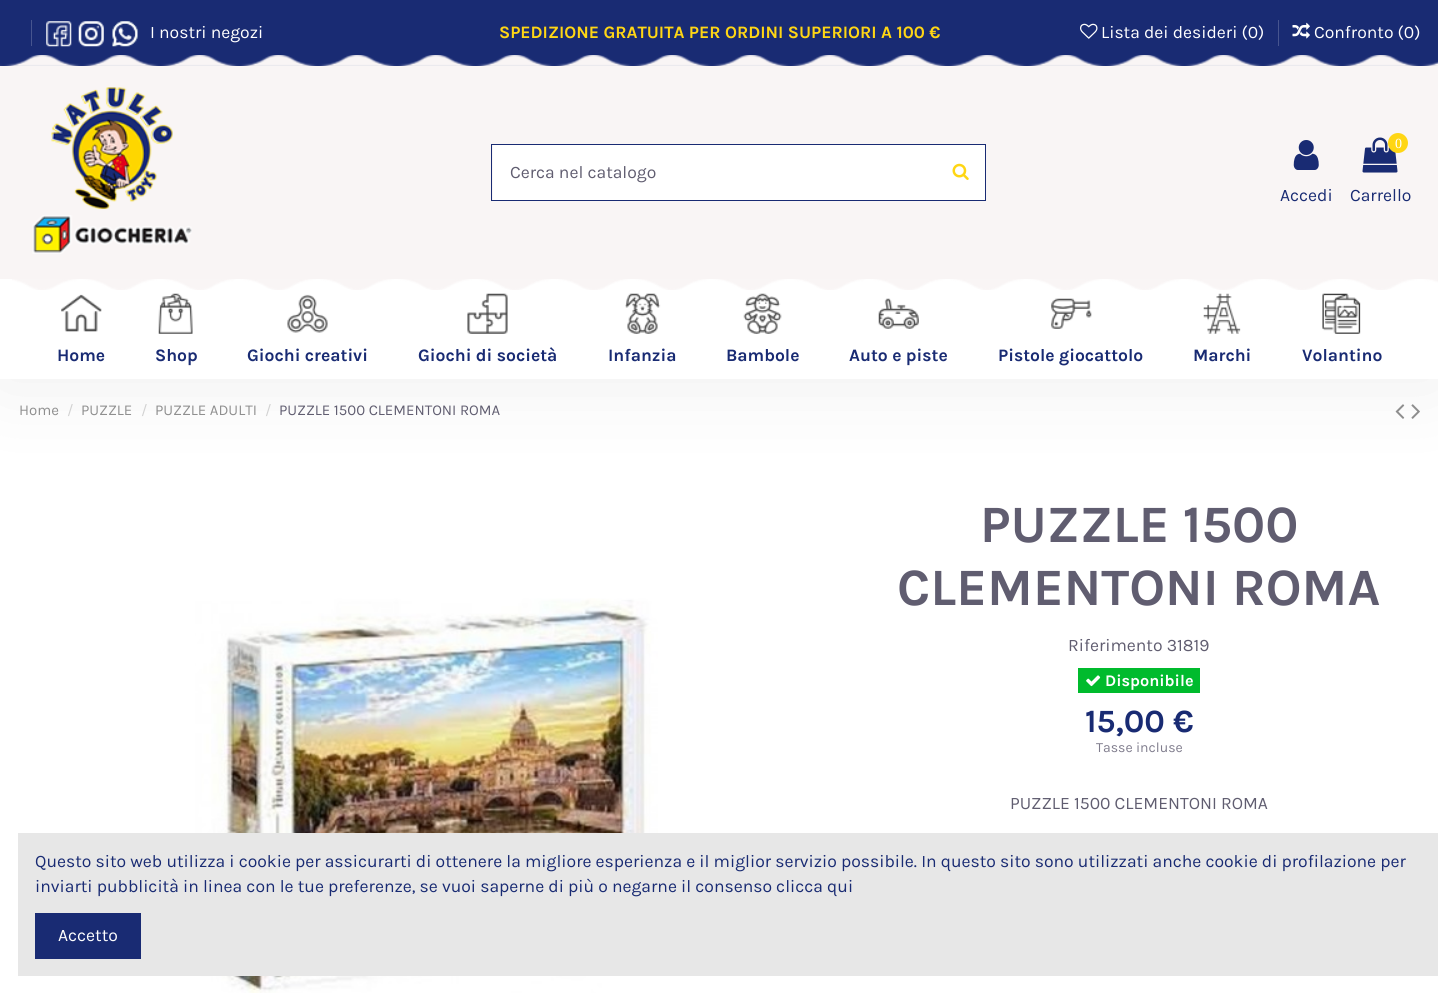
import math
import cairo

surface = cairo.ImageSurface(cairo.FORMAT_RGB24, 1438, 993)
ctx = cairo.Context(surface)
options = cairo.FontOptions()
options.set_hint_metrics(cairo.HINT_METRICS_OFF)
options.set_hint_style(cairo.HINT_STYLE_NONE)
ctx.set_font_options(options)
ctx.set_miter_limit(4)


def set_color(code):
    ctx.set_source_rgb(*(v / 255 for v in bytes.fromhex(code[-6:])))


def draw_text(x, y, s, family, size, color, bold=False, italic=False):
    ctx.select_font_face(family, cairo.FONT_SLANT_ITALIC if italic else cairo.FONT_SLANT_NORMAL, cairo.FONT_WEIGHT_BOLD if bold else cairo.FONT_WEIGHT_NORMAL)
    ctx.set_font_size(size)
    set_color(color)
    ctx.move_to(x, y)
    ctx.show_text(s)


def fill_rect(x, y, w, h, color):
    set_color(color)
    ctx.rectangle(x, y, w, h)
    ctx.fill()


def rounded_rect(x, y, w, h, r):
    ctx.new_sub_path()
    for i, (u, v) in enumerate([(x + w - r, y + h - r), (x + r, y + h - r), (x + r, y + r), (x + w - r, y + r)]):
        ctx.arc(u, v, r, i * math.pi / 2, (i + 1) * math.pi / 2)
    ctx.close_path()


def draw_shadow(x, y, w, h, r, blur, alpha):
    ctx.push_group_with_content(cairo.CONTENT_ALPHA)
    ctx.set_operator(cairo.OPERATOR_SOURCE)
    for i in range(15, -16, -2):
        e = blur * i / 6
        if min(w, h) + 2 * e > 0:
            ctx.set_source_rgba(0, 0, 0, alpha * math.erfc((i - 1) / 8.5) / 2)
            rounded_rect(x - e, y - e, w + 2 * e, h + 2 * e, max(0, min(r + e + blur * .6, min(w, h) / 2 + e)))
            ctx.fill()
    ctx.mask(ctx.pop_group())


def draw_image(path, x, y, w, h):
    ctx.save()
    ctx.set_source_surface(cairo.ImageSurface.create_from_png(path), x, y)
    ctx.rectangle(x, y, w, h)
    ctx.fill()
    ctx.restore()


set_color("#ffffff")
ctx.paint()
draw_image("assets/img22.png", 1395, 404, 10, 15)
draw_image("assets/img23.png", 1411, 404, 9, 15)
set_color("#3d3939")
draw_shadow(0, -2, 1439, 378, 0, 42, 0.1)
fill_rect(0, 66, 1438, 213, "#f9f5f5")
fill_rect(0, 0, 1438, 66, "#192b73")
draw_image("assets/img1.png", 0, 55, 1438, 11)
fill_rect(31, 20, 1, 26, "#47558f")
draw_image("assets/img2.png", 46, 21, 26, 26)
draw_image("assets/img3.png", 78, 21, 26, 26)
draw_image("assets/img4.png", 112, 21, 26, 26)
draw_text(150, 38, "I nostri negozi", "Karla", 17.5, "#ffffff")
draw_text(499, 38, "SPEDIZIONE GRATUITA PER ORDINI SUPERIORI A 100 €", "Karla", 17.5, "#ffd614", bold=True)
draw_image("assets/img5.png", 1080, 23, 18, 16)
draw_text(1101, 38, "Lista dei desideri (0)", "Karla", 17.5, "#ffffff")
fill_rect(1278, 20, 1, 26, "#47558f")
draw_image("assets/img6.png", 1292, 22, 18, 17)
draw_text(1314, 38, "Confronto (0)", "Karla", 17.5, "#ffffff")
draw_image("assets/img7.png", 32, 87, 160, 167)
fill_rect(493, 145, 492, 55, "#ffffff")
ctx.rectangle(491.5, 144.5, 494, 56)
set_color("#192b73")
ctx.set_line_width(1)
ctx.stroke()
draw_text(510, 178, "Cerca nel catalogo", "Karla", 17.5, "#605d70")
draw_image("assets/img8.png", 952, 163, 17, 17)
draw_image("assets/img9.png", 1293, 140, 26, 30)
draw_text(1280, 201, "Accedi", "Karla", 17.5, "#192b73")
draw_image("assets/img10.png", 1362, 137, 36, 36)
set_color("#ffd614")
ctx.arc(1398, 143, 10, 0, 2 * math.pi)
ctx.fill()
draw_text(1395, 148, "0", "Liberation Serif", 14, "#ffffff")
draw_text(1350, 201, "Carrello", "Karla", 17.5, "#192b73")
fill_rect(0, 279, 1438, 100, "#ffffff")
draw_image("assets/img11.png", 12, 279, 1426, 11)
draw_image("assets/img12.png", 61, 294, 41, 38)
draw_text(57, 361, "Home", "Karla", 17.5, "#192b73", bold=True)
draw_image("assets/img13.png", 158, 293, 35, 41)
draw_text(155, 361, "Shop", "Karla", 17.5, "#192b73", bold=True)
draw_image("assets/img14.png", 287, 294, 41, 39)
draw_text(247, 361, "Giochi creativi", "Karla", 17.5, "#192b73", bold=True)
draw_image("assets/img15.png", 467, 293, 41, 41)
draw_text(418, 361, "Giochi di società", "Karla", 17.5, "#192b73", bold=True)
draw_image("assets/img16.png", 625, 293, 36, 41)
draw_text(608, 361, "Infanzia", "Karla", 17.5, "#192b73", bold=True)
draw_image("assets/img17.png", 743, 293, 39, 41)
draw_text(726, 361, "Bambole", "Karla", 17.5, "#192b73", bold=True)
draw_image("assets/img18.png", 878, 298, 41, 31)
draw_text(849, 361, "Auto e piste", "Karla", 17.5, "#192b73", bold=True)
draw_image("assets/img19.png", 1051, 298, 41, 31)
draw_text(998, 361, "Pistole giocattolo", "Karla", 17.5, "#192b73", bold=True)
draw_image("assets/img20.png", 1203, 293, 38, 41)
draw_text(1193, 361, "Marchi", "Karla", 17.5, "#192b73", bold=True)
draw_image("assets/img21.png", 1322, 293, 39, 41)
draw_text(1302, 361, "Volantino", "Karla", 17.5, "#192b73", bold=True)
draw_text(19, 415, "Home", "Karla", 15, "#8f8f8f")
draw_text(67, 415, "/", "Karla", 15, "#d2d2d2")
draw_text(81, 415, "PUZZLE", "Karla", 15, "#8f8f8f")
draw_text(141, 415, "/", "Karla", 15, "#d2d2d2")
draw_text(155, 415, "PUZZLE ADULTI", "Karla", 15, "#8f8f8f")
draw_text(265, 415, "/", "Karla", 15, "#d2d2d2")
draw_text(279, 415, "PUZZLE 1500 CLEMENTONI ROMA", "Karla", 15, "#605d70")
draw_image("assets/img24.png", 195, 598, 463, 395)
draw_text(980, 542, "PUZZLE 1500", "Karla", 52.5, "#605d70", bold=True)
draw_text(897, 605, "CLEMENTONI ROMA", "Karla", 52.5, "#605d70", bold=True)
draw_text(1068, 651, "Riferimento 31819", "Karla", 17.5, "#605d70")
fill_rect(1078, 668, 122, 25, "#00bb2d")
draw_image("assets/img25.png", 1086, 675, 15, 12)
draw_text(1105, 686, "Disponibile", "Karla", 16.25, "#ffffff", bold=True)
draw_text(1085, 732, "15,00 €", "Karla", 32.5, "#192b73", bold=True)
draw_text(1096, 752, "Tasse incluse", "Karla", 14, "#807d8d")
draw_text(1010, 809, "PUZZLE 1500 CLEMENTONI ROMA", "Karla", 17.5, "#605d70")
fill_rect(18, 833, 1420, 143, "#e7e7e7")
draw_text(35, 867, "Questo sito web utilizza i cookie per assicurarti di ottenere la migliore esperienza e il miglior servizio possibile. In questo sito sono utilizzati anche cookie di profilazione per", "Karla", 17.5, "#192b73")
draw_text(35, 892, "inviarti pubblicità in linea con le tue preferenze, se vuoi saperne di più o negarne il consenso clicca qui", "Karla", 17.5, "#192b73")
fill_rect(35, 913, 106, 46, "#192b73")
draw_text(58, 941, "Accetto", "Karla", 17.5, "#ffffff")
surface.write_to_png("output.png")
